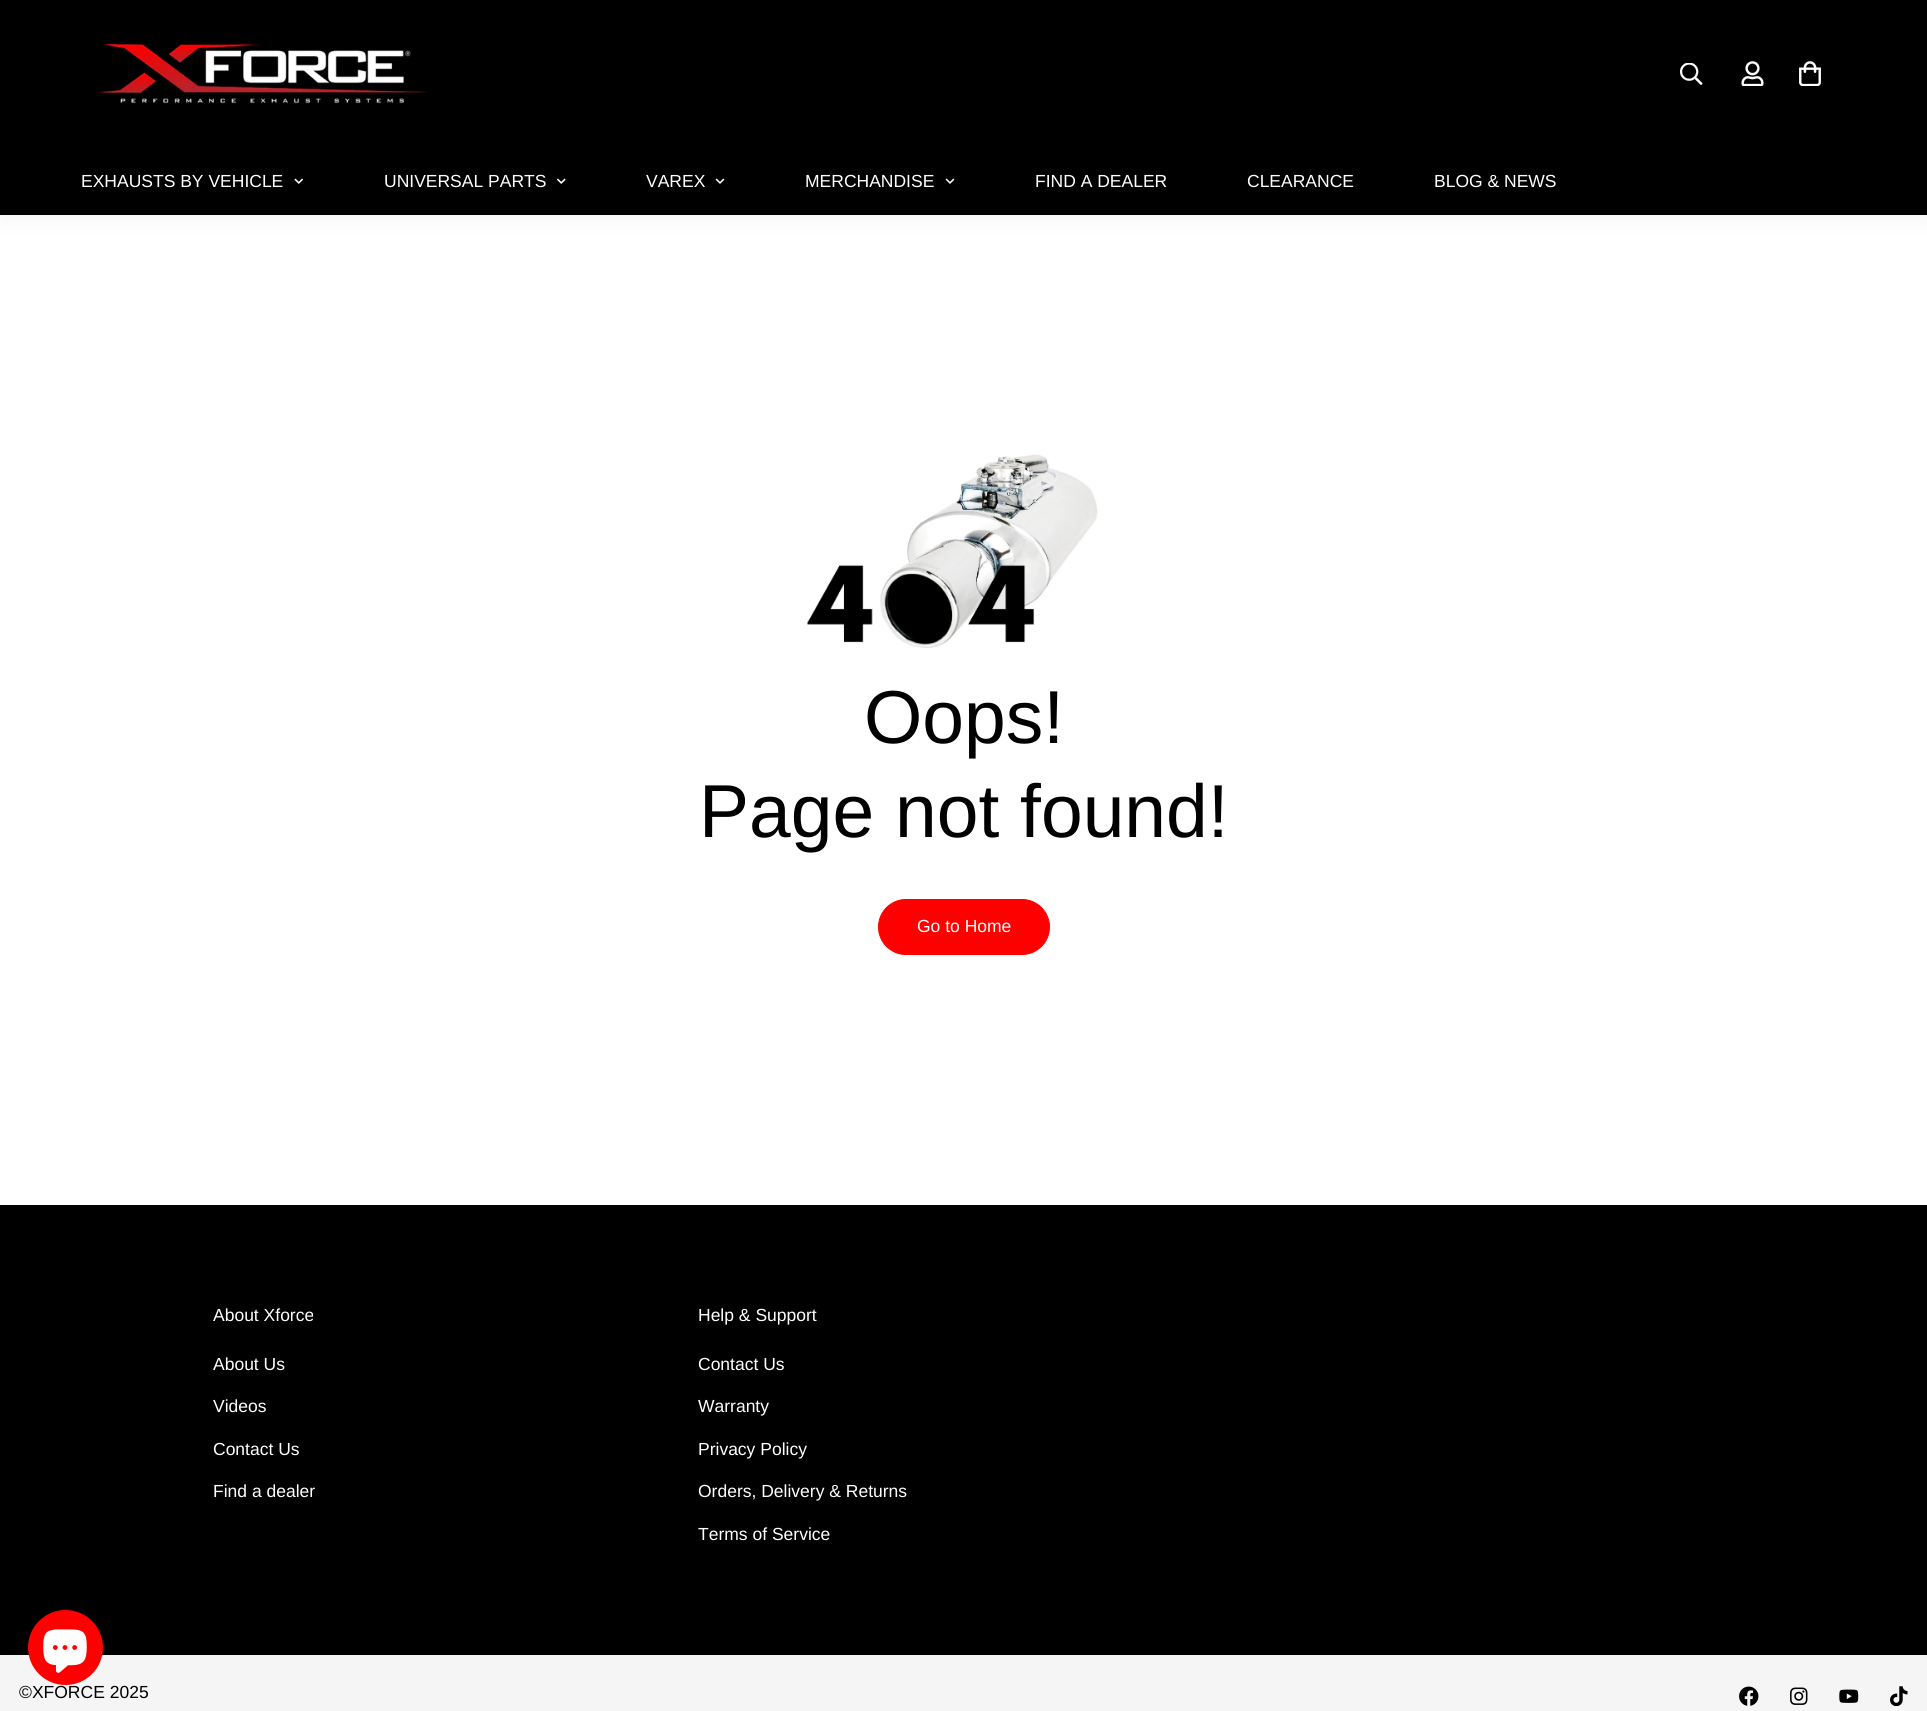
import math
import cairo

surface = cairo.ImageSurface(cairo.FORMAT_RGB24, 1927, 1711)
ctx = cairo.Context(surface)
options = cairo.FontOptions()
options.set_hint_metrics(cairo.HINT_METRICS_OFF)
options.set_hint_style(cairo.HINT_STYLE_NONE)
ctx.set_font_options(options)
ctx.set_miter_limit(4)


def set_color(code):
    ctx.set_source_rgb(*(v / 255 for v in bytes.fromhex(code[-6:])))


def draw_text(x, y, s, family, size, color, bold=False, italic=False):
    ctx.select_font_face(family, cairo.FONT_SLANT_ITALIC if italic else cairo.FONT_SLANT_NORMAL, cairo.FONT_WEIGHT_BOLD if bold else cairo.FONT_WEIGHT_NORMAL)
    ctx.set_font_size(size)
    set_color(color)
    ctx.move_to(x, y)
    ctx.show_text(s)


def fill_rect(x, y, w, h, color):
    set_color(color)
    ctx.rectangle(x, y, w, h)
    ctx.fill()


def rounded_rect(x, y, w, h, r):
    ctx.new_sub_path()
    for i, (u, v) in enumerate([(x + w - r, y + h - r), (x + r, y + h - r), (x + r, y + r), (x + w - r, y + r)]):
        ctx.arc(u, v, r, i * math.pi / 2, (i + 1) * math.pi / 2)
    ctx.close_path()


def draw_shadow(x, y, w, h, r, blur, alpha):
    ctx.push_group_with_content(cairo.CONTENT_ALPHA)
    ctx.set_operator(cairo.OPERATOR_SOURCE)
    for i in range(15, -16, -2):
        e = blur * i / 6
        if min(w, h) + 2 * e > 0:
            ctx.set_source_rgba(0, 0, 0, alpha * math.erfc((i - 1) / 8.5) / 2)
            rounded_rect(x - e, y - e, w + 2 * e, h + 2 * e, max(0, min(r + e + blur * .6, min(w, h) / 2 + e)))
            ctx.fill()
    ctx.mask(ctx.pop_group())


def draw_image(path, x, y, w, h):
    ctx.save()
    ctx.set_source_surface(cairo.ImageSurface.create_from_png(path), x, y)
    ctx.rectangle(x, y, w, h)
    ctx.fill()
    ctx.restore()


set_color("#ffffff")
ctx.paint()
set_color("#000000")
draw_shadow(0, 5, 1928, 215, 0, 12.5, 0.04)
fill_rect(0, 0, 1927, 215, "#000000")
draw_image("assets/img1.png", 99, 40, 329, 64)
draw_image("assets/img2.png", 1680, 63, 23, 22)
draw_image("assets/img3.png", 1741, 61, 23, 25)
draw_image("assets/img4.png", 1799, 61, 22, 25)
draw_text(81, 187, "EXHAUSTS BY VEHICLE", "Liberation Sans", 17.5, "#ffffff")
draw_image("assets/img5.png", 294, 178, 9, 6)
draw_text(384, 187, "UNIVERSAL PARTS", "Liberation Sans", 17.5, "#ffffff")
draw_image("assets/img6.png", 557, 178, 9, 6)
draw_text(646, 187, "VAREX", "Liberation Sans", 17.5, "#ffffff")
draw_image("assets/img7.png", 715, 178, 10, 6)
draw_text(805, 187, "MERCHANDISE", "Liberation Sans", 17.5, "#ffffff")
draw_image("assets/img7.png", 945, 178, 10, 6)
draw_text(1035, 187, "FIND A DEALER", "Liberation Sans", 17.5, "#ffffff")
draw_text(1247, 187, "CLEARANCE", "Liberation Sans", 17.5, "#ffffff")
draw_text(1434, 187, "BLOG & NEWS", "Liberation Sans", 17.5, "#ffffff")
draw_image("assets/img8.png", 807, 454, 291, 194)
draw_text(864, 743, "Oops!", "Liberation Sans", 75, "#000000")
draw_text(699, 837, "Page not found!", "Liberation Sans", 75, "#000000")
set_color("#ff0000")
rounded_rect(878.5, 899.5, 171, 55, 27.5)
ctx.fill_preserve()
ctx.set_line_width(1)
ctx.stroke()
draw_text(917, 932, "Go to Home", "Liberation Sans", 17.5, "#ffffff")
fill_rect(0, 1205, 1927, 450, "#000000")
draw_text(213, 1321, "About Xforce", "Liberation Sans", 17.5, "#ffffff")
draw_text(213, 1370, "About Us", "Liberation Sans", 17.5, "#ffffff")
draw_text(213, 1412, "Videos", "Liberation Sans", 17.5, "#ffffff")
draw_text(213, 1455, "Contact Us", "Liberation Sans", 17.5, "#ffffff")
draw_text(213, 1497, "Find a dealer", "Liberation Sans", 17.5, "#ffffff")
draw_text(698, 1321, "Help & Support", "Liberation Sans", 17.5, "#ffffff")
draw_text(698, 1370, "Contact Us", "Liberation Sans", 17.5, "#ffffff")
draw_text(698, 1412, "Warranty", "Liberation Sans", 17.5, "#ffffff")
draw_text(698, 1455, "Privacy Policy", "Liberation Sans", 17.5, "#ffffff")
draw_text(698, 1497, "Orders, Delivery & Returns", "Liberation Sans", 17.5, "#ffffff")
draw_text(698, 1540, "Terms of Service", "Liberation Sans", 17.5, "#ffffff")
fill_rect(0, 1655, 1927, 56, "#f5f5f5")
draw_text(19, 1698, "©XFORCE 2025", "Liberation Sans", 17.5, "#000000")
draw_image("assets/img9.png", 1739, 1686, 20, 20)
draw_image("assets/img10.png", 1790, 1687, 18, 18)
draw_image("assets/img11.png", 1839, 1689, 20, 14)
draw_image("assets/img12.png", 1890, 1686, 18, 20)
set_color("#ff0000")
ctx.arc(65.5, 1647.5, 37.5, 0, 2 * math.pi)
ctx.fill()
draw_image("assets/img13.png", 43, 1629, 44, 44)
surface.write_to_png("output.png")
